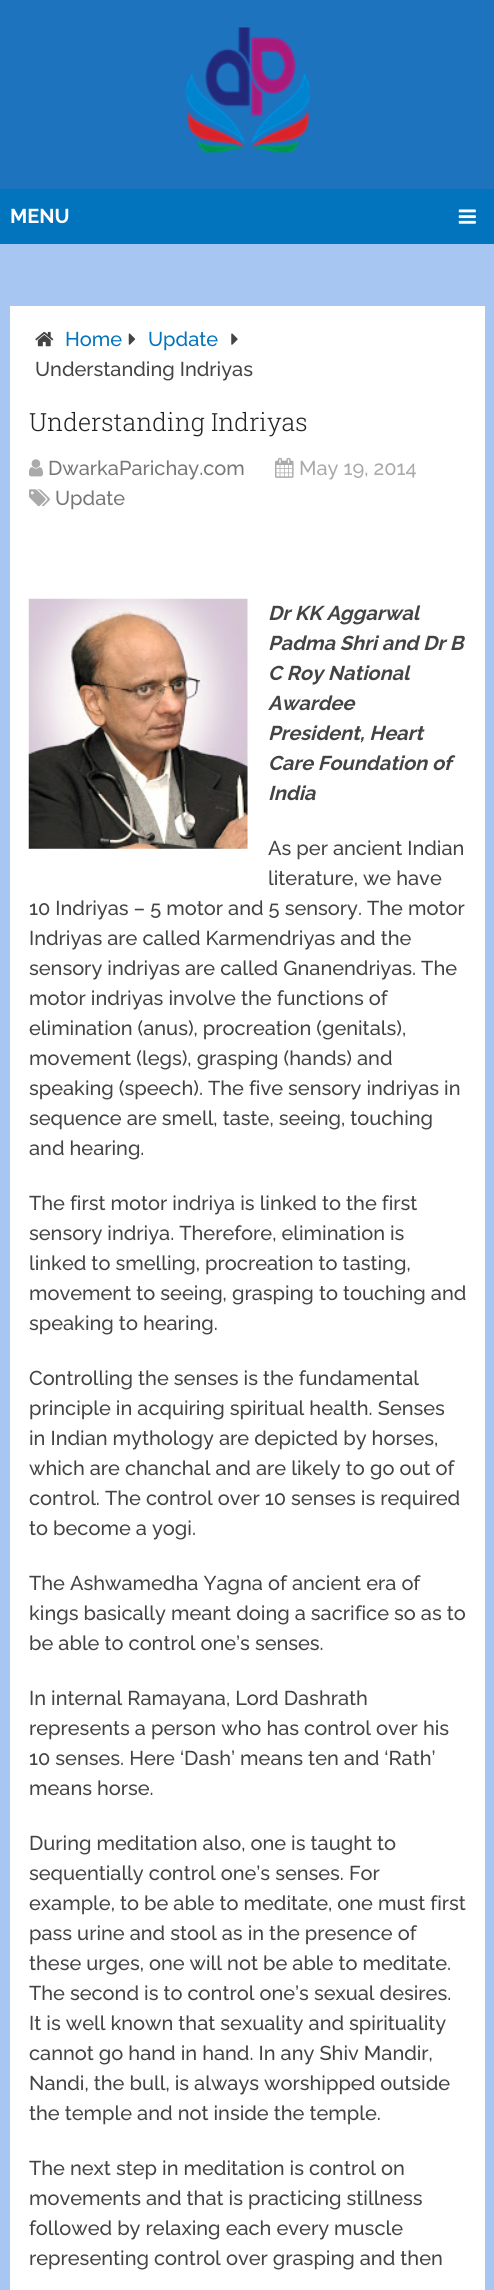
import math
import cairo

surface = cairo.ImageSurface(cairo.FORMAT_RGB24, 494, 2290)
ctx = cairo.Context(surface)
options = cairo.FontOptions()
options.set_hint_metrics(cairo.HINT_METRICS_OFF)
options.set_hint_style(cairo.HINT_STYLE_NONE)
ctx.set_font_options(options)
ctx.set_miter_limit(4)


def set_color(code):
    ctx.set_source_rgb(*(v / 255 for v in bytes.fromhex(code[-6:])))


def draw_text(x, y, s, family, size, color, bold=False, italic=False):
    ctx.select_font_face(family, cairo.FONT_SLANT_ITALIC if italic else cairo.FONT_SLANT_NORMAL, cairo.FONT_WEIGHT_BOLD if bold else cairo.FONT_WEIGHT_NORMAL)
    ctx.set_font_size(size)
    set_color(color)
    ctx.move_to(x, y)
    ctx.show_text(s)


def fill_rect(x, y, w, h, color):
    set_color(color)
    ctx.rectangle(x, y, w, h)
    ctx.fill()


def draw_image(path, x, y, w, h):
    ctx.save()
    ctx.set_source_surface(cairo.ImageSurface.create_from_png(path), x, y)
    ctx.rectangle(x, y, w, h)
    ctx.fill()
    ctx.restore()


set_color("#a7c7f2")
ctx.paint()
fill_rect(0, 0, 494, 189, "#1e73be")
draw_image("assets/img1.png", 185, 27, 125, 126)
fill_rect(0, 189, 494, 55, "#0274be")
draw_text(10, 223, "MENU", "Raleway", 20, "#ffffff", bold=True)
draw_image("assets/img2.png", 458, 209, 18, 15)
fill_rect(10, 306, 475, 1984, "#ffffff")
draw_image("assets/img3.png", 35, 331, 19, 16)
draw_text(65, 346, "Home", "Raleway Medium", 20, "#0274be")
draw_image("assets/img4.png", 128, 333, 8, 12)
draw_text(148, 346, "Update", "Raleway Medium", 20, "#0274be")
draw_image("assets/img5.png", 231, 333, 7, 12)
draw_text(35, 376, "Understanding Indriyas", "Raleway Medium", 20, "#444444")
draw_text(29, 431, "Understanding Indriyas", "Roboto Slab Light", 25, "#222222")
draw_image("assets/img6.png", 29, 459, 14, 18)
draw_text(48, 475, "DwarkaParichay.com", "Raleway Medium", 20, "#777777")
draw_image("assets/img7.png", 275, 457, 19, 21)
draw_text(299, 475, "May 19, 2014", "Raleway Medium", 20, "#aaaaaa")
draw_image("assets/img8.png", 29, 489, 21, 18)
draw_text(55, 505, "Update", "Raleway Medium", 20, "#777777")
draw_image("assets/img9.png", 28, 598, 220, 251)
draw_text(268, 620, "Dr KK Aggarwal", "Raleway", 20, "#444444", bold=True, italic=True)
draw_text(268, 650, "Padma Shri and Dr B", "Raleway", 20, "#444444", bold=True, italic=True)
draw_text(268, 680, "C Roy National", "Raleway", 20, "#444444", bold=True, italic=True)
draw_text(268, 710, "Awardee", "Raleway", 20, "#444444", bold=True, italic=True)
draw_text(268, 740, "President, Heart", "Raleway", 20, "#444444", bold=True, italic=True)
draw_text(268, 770, "Care Foundation of", "Raleway", 20, "#444444", bold=True, italic=True)
draw_text(268, 800, "India", "Raleway", 20, "#444444", bold=True, italic=True)
draw_text(268, 855, "As per ancient Indian", "Raleway Medium", 20, "#444444")
draw_text(268, 885, "literature, we have", "Raleway Medium", 20, "#444444")
draw_text(29, 915, "10 Indriyas – 5 motor and 5 sensory. The motor", "Raleway Medium", 20, "#444444")
draw_text(29, 945, "Indriyas are called Karmendriyas and the", "Raleway Medium", 20, "#444444")
draw_text(29, 975, "sensory indriyas are called Gnanendriyas. The", "Raleway Medium", 20, "#444444")
draw_text(29, 1005, "motor indriyas involve the functions of", "Raleway Medium", 20, "#444444")
draw_text(29, 1035, "elimination (anus), procreation (genitals),", "Raleway Medium", 20, "#444444")
draw_text(29, 1065, "movement (legs), grasping (hands) and", "Raleway Medium", 20, "#444444")
draw_text(29, 1095, "speaking (speech). The five sensory indriyas in", "Raleway Medium", 20, "#444444")
draw_text(29, 1125, "sequence are smell, taste, seeing, touching", "Raleway Medium", 20, "#444444")
draw_text(29, 1155, "and hearing.", "Raleway Medium", 20, "#444444")
draw_text(29, 1210, "The first motor indriya is linked to the first", "Raleway Medium", 20, "#444444")
draw_text(29, 1240, "sensory indriya. Therefore, elimination is", "Raleway Medium", 20, "#444444")
draw_text(29, 1270, "linked to smelling, procreation to tasting,", "Raleway Medium", 20, "#444444")
draw_text(29, 1300, "movement to seeing, grasping to touching and", "Raleway Medium", 20, "#444444")
draw_text(29, 1330, "speaking to hearing.", "Raleway Medium", 20, "#444444")
draw_text(29, 1385, "Controlling the senses is the fundamental", "Raleway Medium", 20, "#444444")
draw_text(29, 1415, "principle in acquiring spiritual health. Senses", "Raleway Medium", 20, "#444444")
draw_text(29, 1445, "in Indian mythology are depicted by horses,", "Raleway Medium", 20, "#444444")
draw_text(29, 1475, "which are chanchal and are likely to go out of", "Raleway Medium", 20, "#444444")
draw_text(29, 1505, "control. The control over 10 senses is required", "Raleway Medium", 20, "#444444")
draw_text(29, 1535, "to become a yogi.", "Raleway Medium", 20, "#444444")
draw_text(29, 1590, "The Ashwamedha Yagna of ancient era of", "Raleway Medium", 20, "#444444")
draw_text(29, 1620, "kings basically meant doing a sacrifice so as to", "Raleway Medium", 20, "#444444")
draw_text(29, 1650, "be able to control one’s senses.", "Raleway Medium", 20, "#444444")
draw_text(29, 1705, "In internal Ramayana, Lord Dashrath", "Raleway Medium", 20, "#444444")
draw_text(29, 1735, "represents a person who has control over his", "Raleway Medium", 20, "#444444")
draw_text(29, 1765, "10 senses. Here ‘Dash’ means ten and ‘Rath’", "Raleway Medium", 20, "#444444")
draw_text(29, 1795, "means horse.", "Raleway Medium", 20, "#444444")
draw_text(29, 1850, "During meditation also, one is taught to", "Raleway Medium", 20, "#444444")
draw_text(29, 1880, "sequentially control one’s senses. For", "Raleway Medium", 20, "#444444")
draw_text(29, 1910, "example, to be able to meditate, one must first", "Raleway Medium", 20, "#444444")
draw_text(29, 1940, "pass urine and stool as in the presence of", "Raleway Medium", 20, "#444444")
draw_text(29, 1970, "these urges, one will not be able to meditate.", "Raleway Medium", 20, "#444444")
draw_text(29, 2000, "The second is to control one’s sexual desires.", "Raleway Medium", 20, "#444444")
draw_text(29, 2030, "It is well known that sexuality and spirituality", "Raleway Medium", 20, "#444444")
draw_text(29, 2060, "cannot go hand in hand. In any Shiv Mandir,", "Raleway Medium", 20, "#444444")
draw_text(29, 2090, "Nandi, the bull, is always worshipped outside", "Raleway Medium", 20, "#444444")
draw_text(29, 2120, "the temple and not inside the temple.", "Raleway Medium", 20, "#444444")
draw_text(29, 2175, "The next step in meditation is control on", "Raleway Medium", 20, "#444444")
draw_text(29, 2205, "movements and that is practicing stillness", "Raleway Medium", 20, "#444444")
draw_text(29, 2235, "followed by relaxing each every muscle", "Raleway Medium", 20, "#444444")
draw_text(29, 2265, "representing control over grasping and then", "Raleway Medium", 20, "#444444")
surface.write_to_png("output.png")
